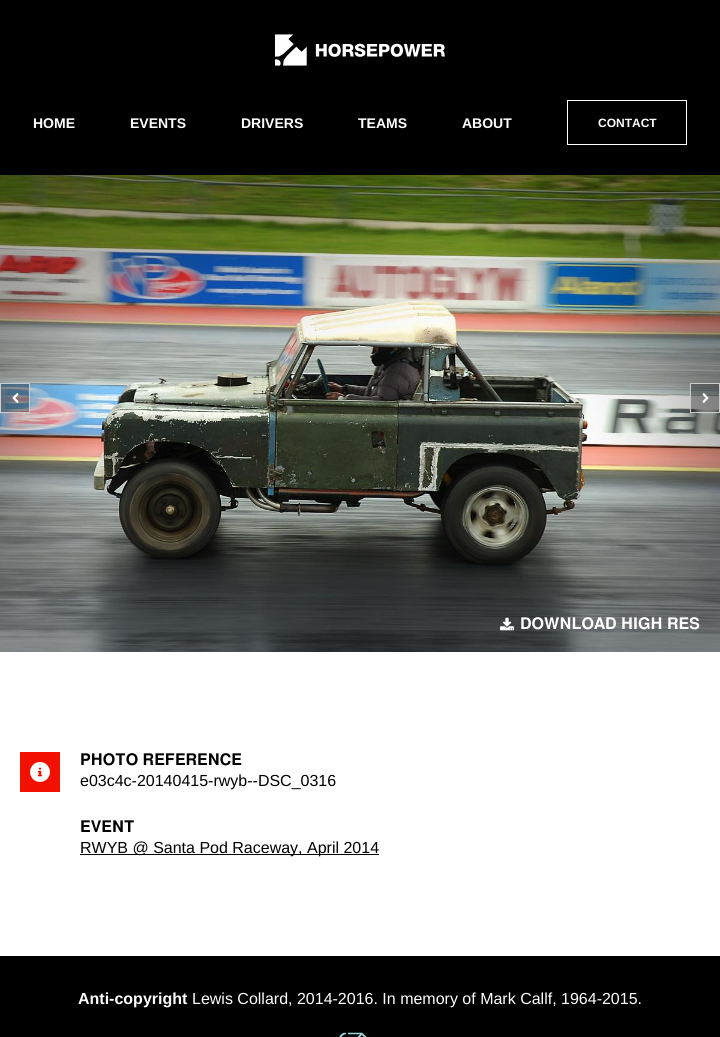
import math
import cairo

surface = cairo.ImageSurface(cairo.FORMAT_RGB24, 720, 1037)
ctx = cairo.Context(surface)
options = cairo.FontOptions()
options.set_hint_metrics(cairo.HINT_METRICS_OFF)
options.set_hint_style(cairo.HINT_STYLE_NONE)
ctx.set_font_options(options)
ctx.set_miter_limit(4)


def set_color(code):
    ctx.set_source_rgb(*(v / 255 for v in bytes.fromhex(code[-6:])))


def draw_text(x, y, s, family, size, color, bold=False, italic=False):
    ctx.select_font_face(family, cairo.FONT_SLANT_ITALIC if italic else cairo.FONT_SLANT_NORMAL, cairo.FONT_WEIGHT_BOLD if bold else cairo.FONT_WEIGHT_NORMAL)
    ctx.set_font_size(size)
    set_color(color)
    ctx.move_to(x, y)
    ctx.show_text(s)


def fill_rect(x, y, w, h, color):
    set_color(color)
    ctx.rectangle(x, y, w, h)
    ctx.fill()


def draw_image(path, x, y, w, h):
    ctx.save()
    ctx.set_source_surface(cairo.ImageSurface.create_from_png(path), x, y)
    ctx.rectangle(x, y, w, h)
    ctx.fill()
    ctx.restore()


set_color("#000000")
ctx.paint()
draw_image("assets/img1.png", 275, 34, 170, 32)
draw_text(33, 128, "HOME", "Liberation Sans", 14, "#ffffff", bold=True)
draw_text(130, 128, "EVENTS", "Liberation Sans", 14, "#ffffff", bold=True)
draw_text(241, 128, "DRIVERS", "Liberation Sans", 14, "#ffffff", bold=True)
draw_text(358, 128, "TEAMS", "Liberation Sans", 14, "#ffffff", bold=True)
draw_text(462, 128, "ABOUT", "Liberation Sans", 14, "#ffffff", bold=True)
ctx.rectangle(567.5, 100.5, 119, 44)
ctx.set_line_width(1)
ctx.stroke()
draw_text(598, 127, "CONTACT", "Liberation Sans", 12, "#ffffff", bold=True)
draw_image("assets/img4.png", 0, 175, 720, 477)
ctx.set_source_rgba(0, 0, 0, 0.3)
ctx.rectangle(0.5, 383.5, 29, 29)
ctx.fill_preserve()
set_color("#cccccc")
ctx.stroke()
draw_image("assets/img2.png", 12, 393, 7, 10)
ctx.set_source_rgba(0, 0, 0, 0.3)
ctx.rectangle(690.5, 383.5, 29, 29)
ctx.fill_preserve()
set_color("#cccccc")
ctx.stroke()
draw_image("assets/img3.png", 702, 393, 7, 10)
draw_image("assets/img5.png", 500, 617, 14, 14)
draw_text(520, 629, "DOWNLOAD HIGH RES", "FreeSans SemiBold", 16, "#ffffff")
fill_rect(0, 652, 720, 304, "#ffffff")
fill_rect(20, 752, 40, 40, "#f21000")
set_color("#ffffff")
ctx.new_path()
ctx.arc(40, 772, 10, 0, 2 * math.pi)
ctx.fill()
draw_image("assets/img6.png", 38, 767, 4, 10)
draw_text(80, 765, "PHOTO REFERENCE", "FreeSans SemiBold", 16, "#000000")
draw_text(80, 786, "e03c4c-20140415-rwyb--DSC_0316", "Liberation Sans", 16, "#000000")
draw_text(80, 832, "EVENT", "FreeSans SemiBold", 16, "#000000")
fill_rect(80, 854, 299, 1, "#000000")
draw_text(80, 853, "RWYB @ Santa Pod Raceway, April 2014", "Liberation Sans", 16, "#000000")
draw_text(78, 1004, "Anti-copyright", "Liberation Sans", 16, "#ffffff", bold=True)
draw_text(192, 1004, "Lewis Collard, 2014-2016. In memory of Mark Callf, 1964-2015.", "Liberation Sans", 16, "#ffffff")
draw_image("assets/img7.png", 339, 1032, 28, 5)
surface.write_to_png("output.png")
